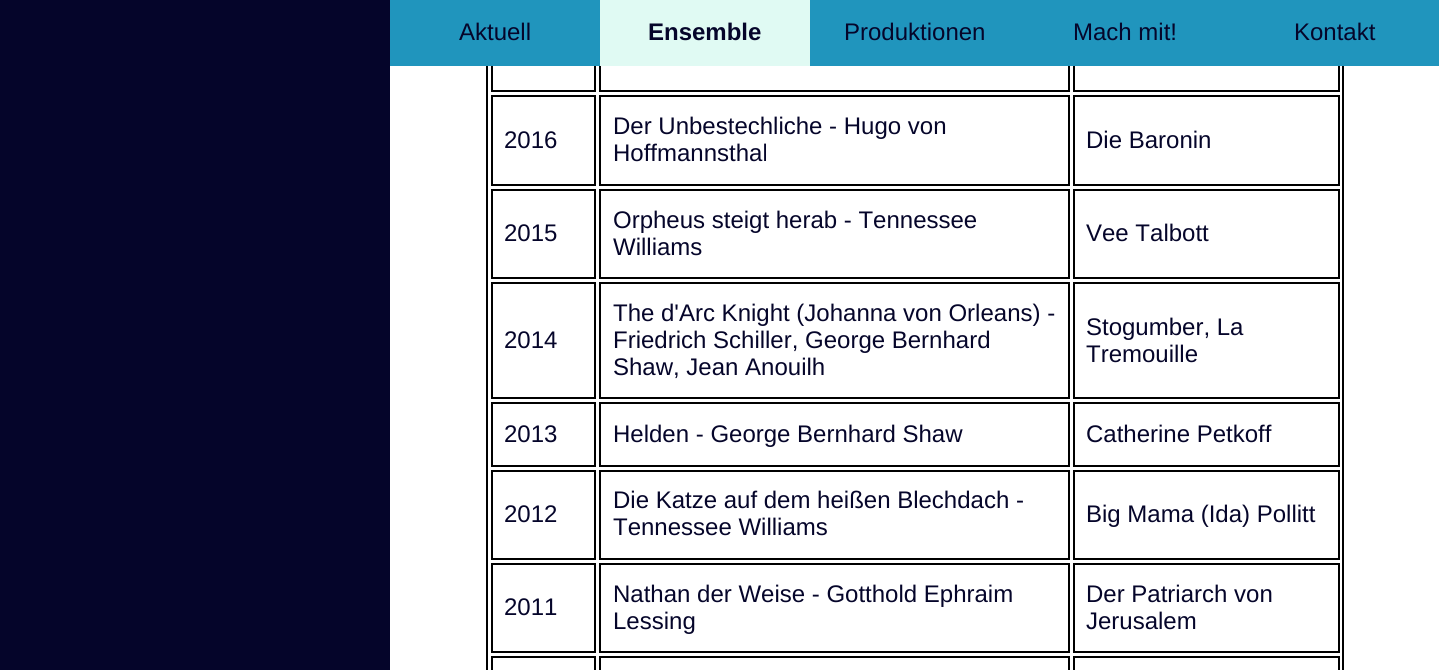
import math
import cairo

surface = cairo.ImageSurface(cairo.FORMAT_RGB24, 1439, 670)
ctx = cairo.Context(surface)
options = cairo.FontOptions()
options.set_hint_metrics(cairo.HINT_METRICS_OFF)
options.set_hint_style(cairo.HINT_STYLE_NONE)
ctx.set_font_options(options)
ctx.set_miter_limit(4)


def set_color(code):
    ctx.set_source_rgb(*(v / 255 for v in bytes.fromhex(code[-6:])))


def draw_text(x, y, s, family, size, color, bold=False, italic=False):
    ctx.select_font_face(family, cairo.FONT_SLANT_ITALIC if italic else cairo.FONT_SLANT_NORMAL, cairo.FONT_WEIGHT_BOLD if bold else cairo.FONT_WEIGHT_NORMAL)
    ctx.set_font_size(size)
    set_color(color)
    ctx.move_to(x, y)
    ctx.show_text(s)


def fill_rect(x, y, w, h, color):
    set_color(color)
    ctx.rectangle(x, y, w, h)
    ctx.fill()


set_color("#05052a")
ctx.paint()
fill_rect(390, 66, 1049, 604, "#ffffff")
ctx.rectangle(487, -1, 856, 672)
set_color("#000000")
ctx.stroke()
ctx.rectangle(492, 3, 103, 88)
ctx.stroke()
ctx.rectangle(600, 3, 469, 88)
ctx.stroke()
ctx.rectangle(1074, 3, 265, 88)
ctx.stroke()
fill_rect(390, 0, 1049, 66, "#2095bd")
draw_text(459, 40, "Aktuell", "Liberation Sans", 24, "#05052a")
fill_rect(600, 0, 210, 66, "#e0faf3")
draw_text(648, 40, "Ensemble", "Liberation Sans", 24, "#05052a", bold=True)
draw_text(844, 40, "Produktionen", "Liberation Sans", 24, "#05052a")
draw_text(1073, 40, "Mach mit!", "Liberation Sans", 24, "#05052a")
draw_text(1294, 40, "Kontakt", "Liberation Sans", 24, "#05052a")
ctx.rectangle(492, 96, 103, 89)
set_color("#000000")
ctx.stroke()
draw_text(504, 148, "2016", "Liberation Sans", 24, "#05052a")
ctx.rectangle(600, 96, 469, 89)
set_color("#000000")
ctx.stroke()
draw_text(613, 134, "Der Unbestechliche - Hugo von", "Liberation Sans", 24, "#05052a")
draw_text(613, 161, "Hoffmannsthal", "Liberation Sans", 24, "#05052a")
ctx.rectangle(1074, 96, 265, 89)
set_color("#000000")
ctx.stroke()
draw_text(1086, 148, "Die Baronin", "Liberation Sans", 24, "#05052a")
ctx.rectangle(492, 190, 103, 88)
set_color("#000000")
ctx.stroke()
draw_text(504, 241, "2015", "Liberation Sans", 24, "#05052a")
ctx.rectangle(600, 190, 469, 88)
set_color("#000000")
ctx.stroke()
draw_text(613, 228, "Orpheus steigt herab - Tennessee", "Liberation Sans", 24, "#05052a")
draw_text(613, 255, "Williams", "Liberation Sans", 24, "#05052a")
ctx.rectangle(1074, 190, 265, 88)
set_color("#000000")
ctx.stroke()
draw_text(1086, 241, "Vee Talbott", "Liberation Sans", 24, "#05052a")
ctx.rectangle(492, 283, 103, 115)
set_color("#000000")
ctx.stroke()
draw_text(504, 348, "2014", "Liberation Sans", 24, "#05052a")
ctx.rectangle(600, 283, 469, 115)
set_color("#000000")
ctx.stroke()
draw_text(613, 321, "The d'Arc Knight (Johanna von Orleans) -", "Liberation Sans", 24, "#05052a")
draw_text(613, 348, "Friedrich Schiller, George Bernhard", "Liberation Sans", 24, "#05052a")
draw_text(613, 375, "Shaw, Jean Anouilh", "Liberation Sans", 24, "#05052a")
ctx.rectangle(1074, 283, 265, 115)
set_color("#000000")
ctx.stroke()
draw_text(1086, 335, "Stogumber, La", "Liberation Sans", 24, "#05052a")
draw_text(1086, 362, "Tremouille", "Liberation Sans", 24, "#05052a")
ctx.rectangle(492, 403, 103, 63)
set_color("#000000")
ctx.stroke()
draw_text(504, 442, "2013", "Liberation Sans", 24, "#05052a")
ctx.rectangle(600, 403, 469, 63)
set_color("#000000")
ctx.stroke()
draw_text(613, 442, "Helden - George Bernhard Shaw", "Liberation Sans", 24, "#05052a")
ctx.rectangle(1074, 403, 265, 63)
set_color("#000000")
ctx.stroke()
draw_text(1086, 442, "Catherine Petkoff", "Liberation Sans", 24, "#05052a")
ctx.rectangle(492, 471, 103, 88)
set_color("#000000")
ctx.stroke()
draw_text(504, 522, "2012", "Liberation Sans", 24, "#05052a")
ctx.rectangle(600, 471, 469, 88)
set_color("#000000")
ctx.stroke()
draw_text(613, 508, "Die Katze auf dem heißen Blechdach -", "Liberation Sans", 24, "#05052a")
draw_text(613, 535, "Tennessee Williams", "Liberation Sans", 24, "#05052a")
ctx.rectangle(1074, 471, 265, 88)
set_color("#000000")
ctx.stroke()
draw_text(1086, 522, "Big Mama (Ida) Pollitt", "Liberation Sans", 24, "#05052a")
ctx.rectangle(492, 564, 103, 88)
set_color("#000000")
ctx.stroke()
draw_text(504, 615, "2011", "Liberation Sans", 24, "#05052a")
ctx.rectangle(600, 564, 469, 88)
set_color("#000000")
ctx.stroke()
draw_text(613, 602, "Nathan der Weise - Gotthold Ephraim", "Liberation Sans", 24, "#05052a")
draw_text(613, 629, "Lessing", "Liberation Sans", 24, "#05052a")
ctx.rectangle(1074, 564, 265, 88)
set_color("#000000")
ctx.stroke()
draw_text(1086, 602, "Der Patriarch von", "Liberation Sans", 24, "#05052a")
draw_text(1086, 629, "Jerusalem", "Liberation Sans", 24, "#05052a")
ctx.rectangle(492, 657, 103, 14)
set_color("#000000")
ctx.stroke()
ctx.rectangle(600, 657, 469, 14)
ctx.stroke()
ctx.rectangle(1074, 657, 265, 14)
ctx.stroke()
surface.write_to_png("output.png")
